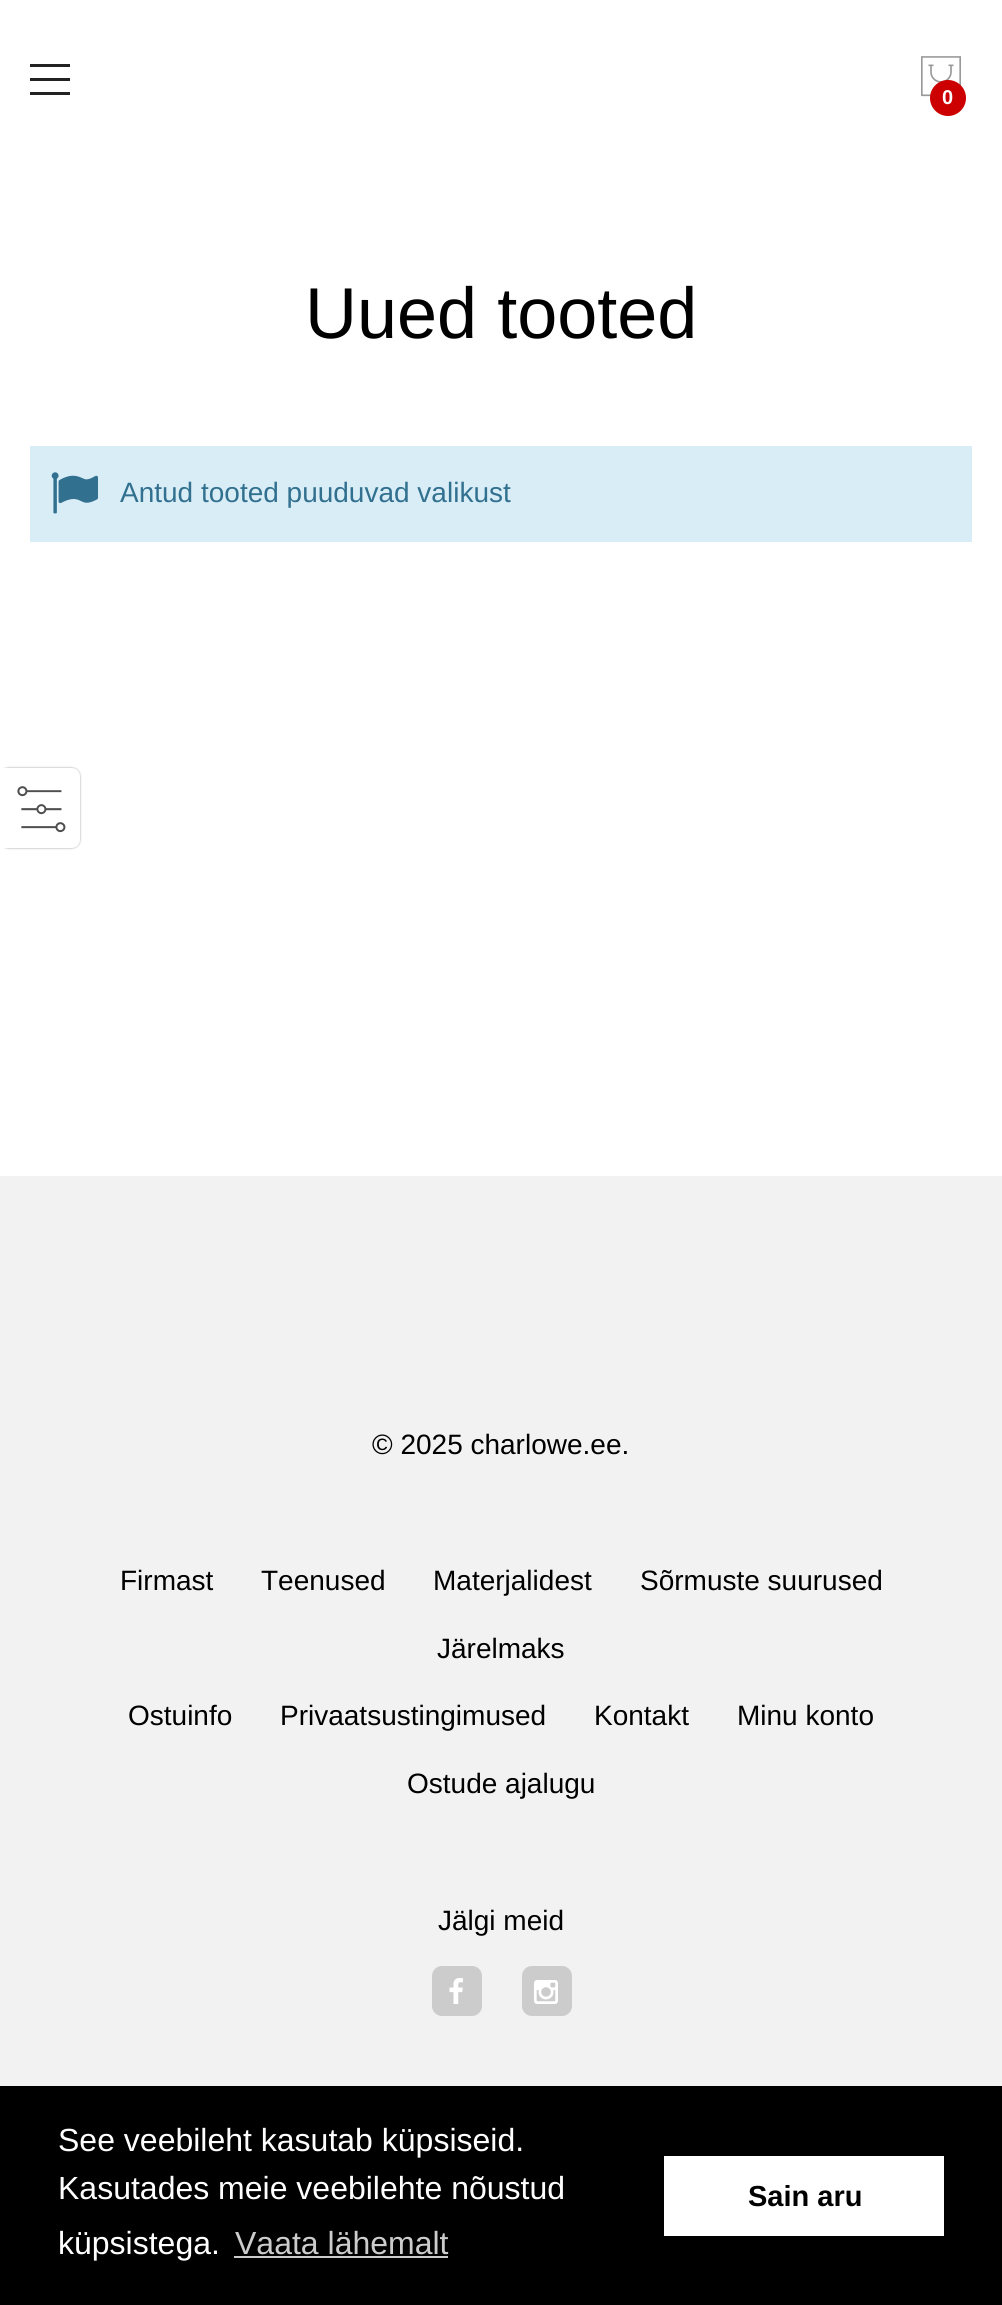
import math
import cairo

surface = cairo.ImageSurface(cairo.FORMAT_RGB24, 1002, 2305)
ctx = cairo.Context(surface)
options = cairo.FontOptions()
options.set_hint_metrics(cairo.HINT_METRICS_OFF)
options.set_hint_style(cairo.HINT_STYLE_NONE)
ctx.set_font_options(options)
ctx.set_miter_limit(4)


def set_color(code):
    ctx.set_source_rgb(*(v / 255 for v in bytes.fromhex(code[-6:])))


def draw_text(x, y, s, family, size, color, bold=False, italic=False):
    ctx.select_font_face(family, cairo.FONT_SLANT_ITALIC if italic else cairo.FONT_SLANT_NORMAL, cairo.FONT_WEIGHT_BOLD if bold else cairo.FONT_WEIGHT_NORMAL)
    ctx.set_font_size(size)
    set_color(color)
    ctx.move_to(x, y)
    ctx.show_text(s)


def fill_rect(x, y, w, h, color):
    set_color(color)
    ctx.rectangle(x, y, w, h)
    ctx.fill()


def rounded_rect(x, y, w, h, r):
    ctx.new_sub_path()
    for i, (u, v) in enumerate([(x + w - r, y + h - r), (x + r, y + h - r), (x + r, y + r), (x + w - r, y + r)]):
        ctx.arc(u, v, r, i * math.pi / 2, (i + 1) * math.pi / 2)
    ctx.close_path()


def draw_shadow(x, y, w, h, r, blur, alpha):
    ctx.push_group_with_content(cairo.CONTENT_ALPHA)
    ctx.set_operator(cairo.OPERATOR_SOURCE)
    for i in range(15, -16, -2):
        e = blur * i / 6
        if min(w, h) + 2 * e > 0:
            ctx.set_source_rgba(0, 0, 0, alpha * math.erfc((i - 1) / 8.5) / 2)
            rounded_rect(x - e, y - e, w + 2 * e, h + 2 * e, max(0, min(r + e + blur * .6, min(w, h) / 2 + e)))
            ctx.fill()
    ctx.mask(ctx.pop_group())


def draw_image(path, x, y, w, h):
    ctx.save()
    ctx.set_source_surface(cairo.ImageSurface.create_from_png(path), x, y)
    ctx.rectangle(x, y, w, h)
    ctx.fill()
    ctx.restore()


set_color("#ffffff")
ctx.paint()
fill_rect(30, 64, 40, 3, "#222222")
fill_rect(30, 78, 40, 3, "#222222")
fill_rect(30, 92, 40, 3, "#222222")
draw_image("assets/img1.png", 921, 56, 40, 41)
set_color("#cc0000")
ctx.arc(948, 98, 18, 0, 2 * math.pi)
ctx.fill()
draw_text(942, 104, "0", "Liberation Sans", 20, "#ffffff", bold=True)
draw_text(305, 338, "Uued tooted", "Liberation Sans", 72, "#000000")
fill_rect(30, 446, 942, 96, "#d9edf7")
draw_image("assets/img2.png", 51, 472, 47, 42)
draw_text(120, 502, "Antud tooted puuduvad valikust", "Liberation Sans", 28, "#31708f")
set_color("#999999")
draw_shadow(0, 768, 80, 80, 8, 1, 1)
set_color("#ffffff")
ctx.new_path()
ctx.move_to(0, 768)
ctx.line_to(72, 768)
ctx.curve_to(76.5, 768, 80, 771.5, 80, 776)
ctx.line_to(80, 840)
ctx.curve_to(80, 844.5, 76.5, 848, 72, 848)
ctx.line_to(0, 848)
ctx.close_path()
ctx.fill()
draw_image("assets/img3.png", 17, 786, 49, 47)
fill_rect(0, 1176, 1002, 910, "#f2f2f2")
draw_text(372, 1454, "© 2025 charlowe.ee.", "Liberation Sans", 28, "#000000")
draw_text(120, 1590, "Firmast", "Liberation Sans", 28, "#000000")
draw_text(261, 1590, "Teenused", "Liberation Sans", 28, "#000000")
draw_text(433, 1590, "Materjalidest", "Liberation Sans", 28, "#000000")
draw_text(640, 1590, "Sõrmuste suurused", "Liberation Sans", 28, "#000000")
draw_text(437, 1658, "Järelmaks", "Liberation Sans", 28, "#000000")
draw_text(128, 1725, "Ostuinfo", "Liberation Sans", 28, "#000000")
draw_text(280, 1725, "Privaatsustingimused", "Liberation Sans", 28, "#000000")
draw_text(594, 1725, "Kontakt", "Liberation Sans", 28, "#000000")
draw_text(737, 1725, "Minu konto", "Liberation Sans", 28, "#000000")
draw_text(407, 1793, "Ostude ajalugu", "Liberation Sans", 28, "#000000")
draw_text(438, 1930, "Jälgi meid", "Liberation Sans", 28, "#000000")
set_color("#cccccc")
rounded_rect(432, 1966, 50, 50, 10)
ctx.fill()
draw_image("assets/img4.png", 449, 1978, 14, 26)
rounded_rect(522, 1966, 50, 50, 10)
ctx.fill()
draw_image("assets/img5.png", 534, 1980, 24, 24)
fill_rect(0, 2086, 1002, 219, "#000000")
draw_text(58, 2151, "See veebileht kasutab küpsiseid.", "Liberation Sans", 32, "#ffffff")
draw_text(58, 2199, "Kasutades meie veebilehte nõustud", "Liberation Sans", 32, "#ffffff")
draw_text(58, 2254, "küpsistega.", "Liberation Sans", 32, "#ffffff")
draw_text(235, 2254, "Vaata lähemalt", "Liberation Sans", 32, "#cccccc")
fill_rect(234, 2256, 214, 2, "#cccccc")
fill_rect(664, 2156, 280, 80, "#ffffff")
draw_text(748, 2206, "Sain aru", "Liberation Sans", 29, "#000000", bold=True)
surface.write_to_png("output.png")
